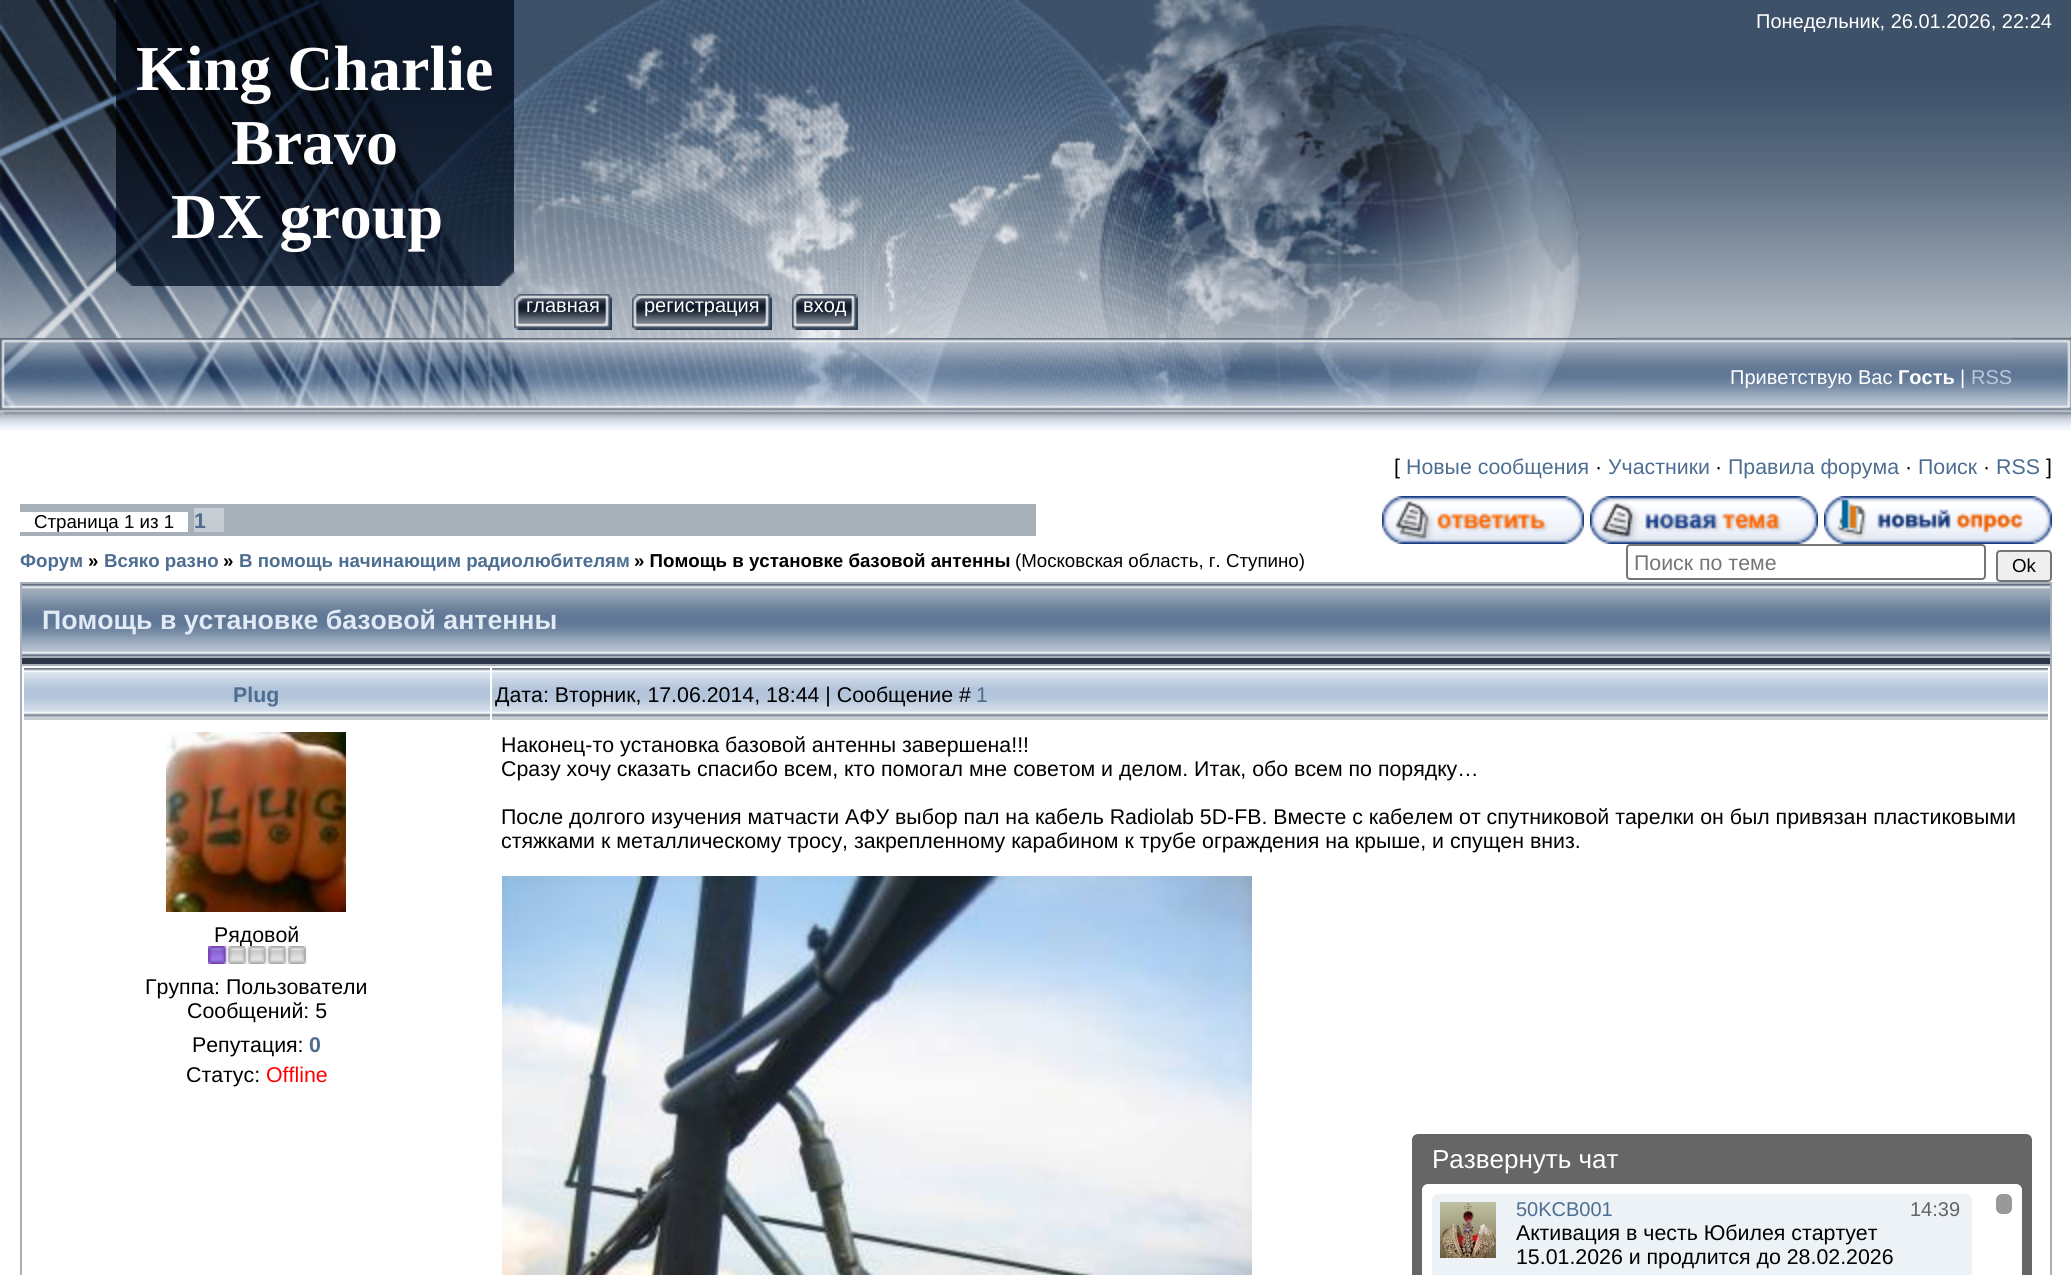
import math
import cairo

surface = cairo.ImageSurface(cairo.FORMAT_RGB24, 2071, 1275)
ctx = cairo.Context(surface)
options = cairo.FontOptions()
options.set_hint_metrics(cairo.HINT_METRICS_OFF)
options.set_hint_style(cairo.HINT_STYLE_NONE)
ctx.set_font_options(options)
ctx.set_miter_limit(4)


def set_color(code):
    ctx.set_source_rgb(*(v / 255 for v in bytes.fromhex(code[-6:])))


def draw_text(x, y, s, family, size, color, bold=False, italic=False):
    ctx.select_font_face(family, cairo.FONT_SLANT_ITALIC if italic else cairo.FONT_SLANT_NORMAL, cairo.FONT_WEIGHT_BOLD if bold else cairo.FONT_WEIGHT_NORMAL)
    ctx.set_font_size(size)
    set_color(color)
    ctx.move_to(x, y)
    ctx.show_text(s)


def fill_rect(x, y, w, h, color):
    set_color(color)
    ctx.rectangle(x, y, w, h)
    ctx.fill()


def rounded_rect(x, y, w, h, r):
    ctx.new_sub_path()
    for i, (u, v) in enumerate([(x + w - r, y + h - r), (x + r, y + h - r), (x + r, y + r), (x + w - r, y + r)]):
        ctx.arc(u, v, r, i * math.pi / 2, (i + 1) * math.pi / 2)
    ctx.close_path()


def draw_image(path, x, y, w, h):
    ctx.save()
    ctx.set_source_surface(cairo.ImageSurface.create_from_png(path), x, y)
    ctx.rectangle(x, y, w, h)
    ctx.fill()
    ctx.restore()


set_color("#ffffff")
ctx.paint()
draw_image("assets/img1.png", 0, 0, 2071, 431)
draw_image("assets/img2.png", 0, 0, 116, 286)
draw_image("assets/img3.png", 514, 0, 1067, 286)
draw_text(1756, 28, "Понедельник, 26.01.2026, 22:24", "Liberation Sans", 20, "#ffffff")
draw_image("assets/img4.png", 116, 0, 398, 286)
draw_text(136, 90, "King Charlie", "Liberation Serif", 64, "#ffffff", bold=True)
draw_text(231, 164, "Bravo", "Liberation Serif", 64, "#ffffff", bold=True)
draw_text(171, 238, "DX group", "Liberation Serif", 64, "#ffffff", bold=True)
draw_image("assets/img5.png", 0, 286, 116, 52)
draw_image("assets/img6.png", 116, 286, 398, 52)
draw_image("assets/img7.png", 514, 286, 1104, 52)
draw_image("assets/img8.png", 523, 294, 89, 36)
draw_image("assets/img9.png", 514, 294, 9, 36)
draw_text(526, 312, "главная", "Liberation Sans", 20, "#ffffff")
draw_image("assets/img10.png", 603, 294, 9, 35)
draw_image("assets/img11.png", 641, 294, 131, 36)
draw_image("assets/img9.png", 632, 294, 9, 36)
draw_text(644, 312, "регистрация", "Liberation Sans", 20, "#ffffff")
draw_image("assets/img10.png", 763, 294, 9, 35)
draw_image("assets/img12.png", 801, 294, 57, 36)
draw_image("assets/img9.png", 792, 294, 9, 36)
draw_text(803, 312, "вход", "Liberation Sans", 20, "#ffffff")
draw_image("assets/img13.png", 846, 294, 12, 35)
draw_image("assets/img14.png", 0, 338, 60, 77)
draw_image("assets/img15.png", 60, 338, 1558, 76)
draw_text(1730, 384, "Приветствую Вас", "Liberation Sans", 20, "#ffffff")
draw_text(1898, 384, "Гость", "Liberation Sans", 20, "#ffffff", bold=True)
draw_text(1960, 384, "|", "Liberation Sans", 20, "#ffffff")
draw_text(1971, 384, "RSS", "Liberation Sans", 20, "#bdc8d8")
draw_image("assets/img16.png", 2012, 338, 59, 80)
draw_text(1394, 474, "[", "Liberation Sans", 21.33, "#000000")
draw_text(1406, 474, "Новые сообщения", "Liberation Sans", 21.33, "#4d6d91")
draw_text(1595, 474, "·", "Liberation Sans", 21.33, "#000000")
draw_text(1608, 474, "Участники", "Liberation Sans", 21.33, "#4d6d91")
draw_text(1715, 474, "·", "Liberation Sans", 21.33, "#000000")
draw_text(1728, 474, "Правила форума", "Liberation Sans", 21.33, "#4d6d91")
draw_text(1905, 474, "·", "Liberation Sans", 21.33, "#000000")
draw_text(1918, 474, "Поиск", "Liberation Sans", 21.33, "#4d6d91")
draw_text(1983, 474, "·", "Liberation Sans", 21.33, "#000000")
draw_text(1996, 474, "RSS", "Liberation Sans", 21.33, "#4d6d91")
draw_text(2046, 474, "]", "Liberation Sans", 21.33, "#000000")
fill_rect(20, 504, 1016, 32, "#a7afb8")
fill_rect(20, 512, 168, 20, "#ffffff")
draw_text(34, 528, "Страница 1 из 1", "Liberation Sans", 18.7, "#000000")
draw_image("assets/img17.png", 194, 508, 30, 24)
draw_text(194, 528, "1", "Liberation Sans", 21.33, "#4d6d91", bold=True)
draw_image("assets/img18.png", 1382, 496, 202, 48)
draw_image("assets/img19.png", 1590, 496, 228, 48)
draw_image("assets/img20.png", 1824, 496, 228, 48)
draw_text(20, 567, "Форум", "Liberation Sans", 18.7, "#4d6d91", bold=True)
draw_text(88, 567, "»", "Liberation Sans", 18.7, "#000000", bold=True)
draw_text(104, 567, "Всяко разно", "Liberation Sans", 18.7, "#4d6d91", bold=True)
draw_text(223, 567, "»", "Liberation Sans", 18.7, "#000000", bold=True)
draw_text(239, 567, "В помощь начинающим радиолюбителям", "Liberation Sans", 18.7, "#4d6d91", bold=True)
draw_text(634, 567, "» Помощь в установке базовой антенны", "Liberation Sans", 18.7, "#000000", bold=True)
draw_text(1015, 567, "(Московская область, г. Ступино)", "Liberation Sans", 18.7, "#000000")
rounded_rect(1627, 545, 358, 34, 3)
set_color("#767676")
ctx.stroke()
draw_text(1634, 570, "Поиск по теме", "Liberation Sans", 21.33, "#757575")
set_color("#efefef")
rounded_rect(1997, 551, 54, 30, 3)
ctx.fill_preserve()
set_color("#767676")
ctx.stroke()
draw_text(2012, 572, "Ok", "Liberation Sans", 18.7, "#000000")
fill_rect(20, 582, 2032, 693, "#a7afb8")
draw_image("assets/img21.png", 22, 584, 2028, 72)
draw_text(42, 629, "Помощь в установке базовой антенны", "Liberation Sans", 26.7, "#e2ebf5", bold=True)
fill_rect(22, 658, 2028, 6, "#2b3545")
fill_rect(22, 666, 2028, 609, "#ffffff")
draw_image("assets/img22.png", 24, 668, 466, 52)
draw_text(233, 702, "Plug", "Liberation Sans", 21.33, "#4d6d91", bold=True)
draw_image("assets/img23.png", 492, 668, 1556, 52)
draw_text(495, 702, "Дата: Вторник, 17.06.2014, 18:44 | Сообщение #", "Liberation Sans", 21.33, "#000000")
draw_text(976, 702, "1", "Liberation Sans", 21.33, "#4d6d91")
draw_text(501, 752, "Наконец-то установка базовой антенны завершена!!!", "Liberation Sans", 21.33, "#000000")
draw_text(501, 776, "Сразу хочу сказать спасибо всем, кто помогал мне советом и делом. Итак, обо всем по порядку…", "Liberation Sans", 21.33, "#000000")
draw_text(501, 824, "После долгого изучения матчасти АФУ выбор пал на кабель Radiolab 5D-FB. Вместе с кабелем от спутниковой тарелки он был привязан пластиковыми", "Liberation Sans", 21.33, "#000000")
draw_text(501, 848, "стяжками к металлическому тросу, закрепленному карабином к трубе ограждения на крыше, и спущен вниз.", "Liberation Sans", 21.33, "#000000")
draw_image("assets/img24.png", 502, 876, 750, 399)
draw_image("assets/img25.png", 166, 732, 180, 180)
draw_text(214, 942, "Рядовой", "Liberation Sans", 21.33, "#000000")
draw_image("assets/img26.png", 208, 946, 98, 18)
draw_text(145, 994, "Группа: Пользователи", "Liberation Sans", 21.33, "#000000")
draw_text(187, 1018, "Сообщений: 5", "Liberation Sans", 21.33, "#000000")
draw_text(192, 1052, "Репутация:", "Liberation Sans", 21.33, "#000000")
draw_text(309, 1052, "0", "Liberation Sans", 21.33, "#4d6d91", bold=True)
draw_text(186, 1082, "Статус:", "Liberation Sans", 21.33, "#000000")
draw_text(266, 1082, "Offline", "Liberation Sans", 21.33, "#ff0000")
set_color("#666666")
rounded_rect(1412, 1134, 620, 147, 6)
ctx.fill()
draw_text(1432, 1168, "Развернуть чат", "Liberation Sans", 26, "#ffffff")
rounded_rect(1422, 1184, 600, 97, 6)
ctx.fill()
set_color("#ecf2f6")
rounded_rect(1432, 1194, 540, 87, 6)
ctx.fill()
draw_image("assets/img27.png", 1440, 1202, 56, 56)
draw_text(1516, 1216, "50KCB001", "Liberation Sans", 20, "#4d6d91")
draw_text(1910, 1216, "14:39", "Liberation Sans", 20, "#646464")
draw_text(1516, 1240, "Активация в честь Юбилея стартует", "Liberation Sans", 21.33, "#000000")
draw_text(1516, 1264, "15.01.2026 и продлится до 28.02.2026", "Liberation Sans", 21.33, "#000000")
set_color("#999999")
rounded_rect(1996, 1194, 16, 20, 6)
ctx.fill()
surface.write_to_png("output.png")
